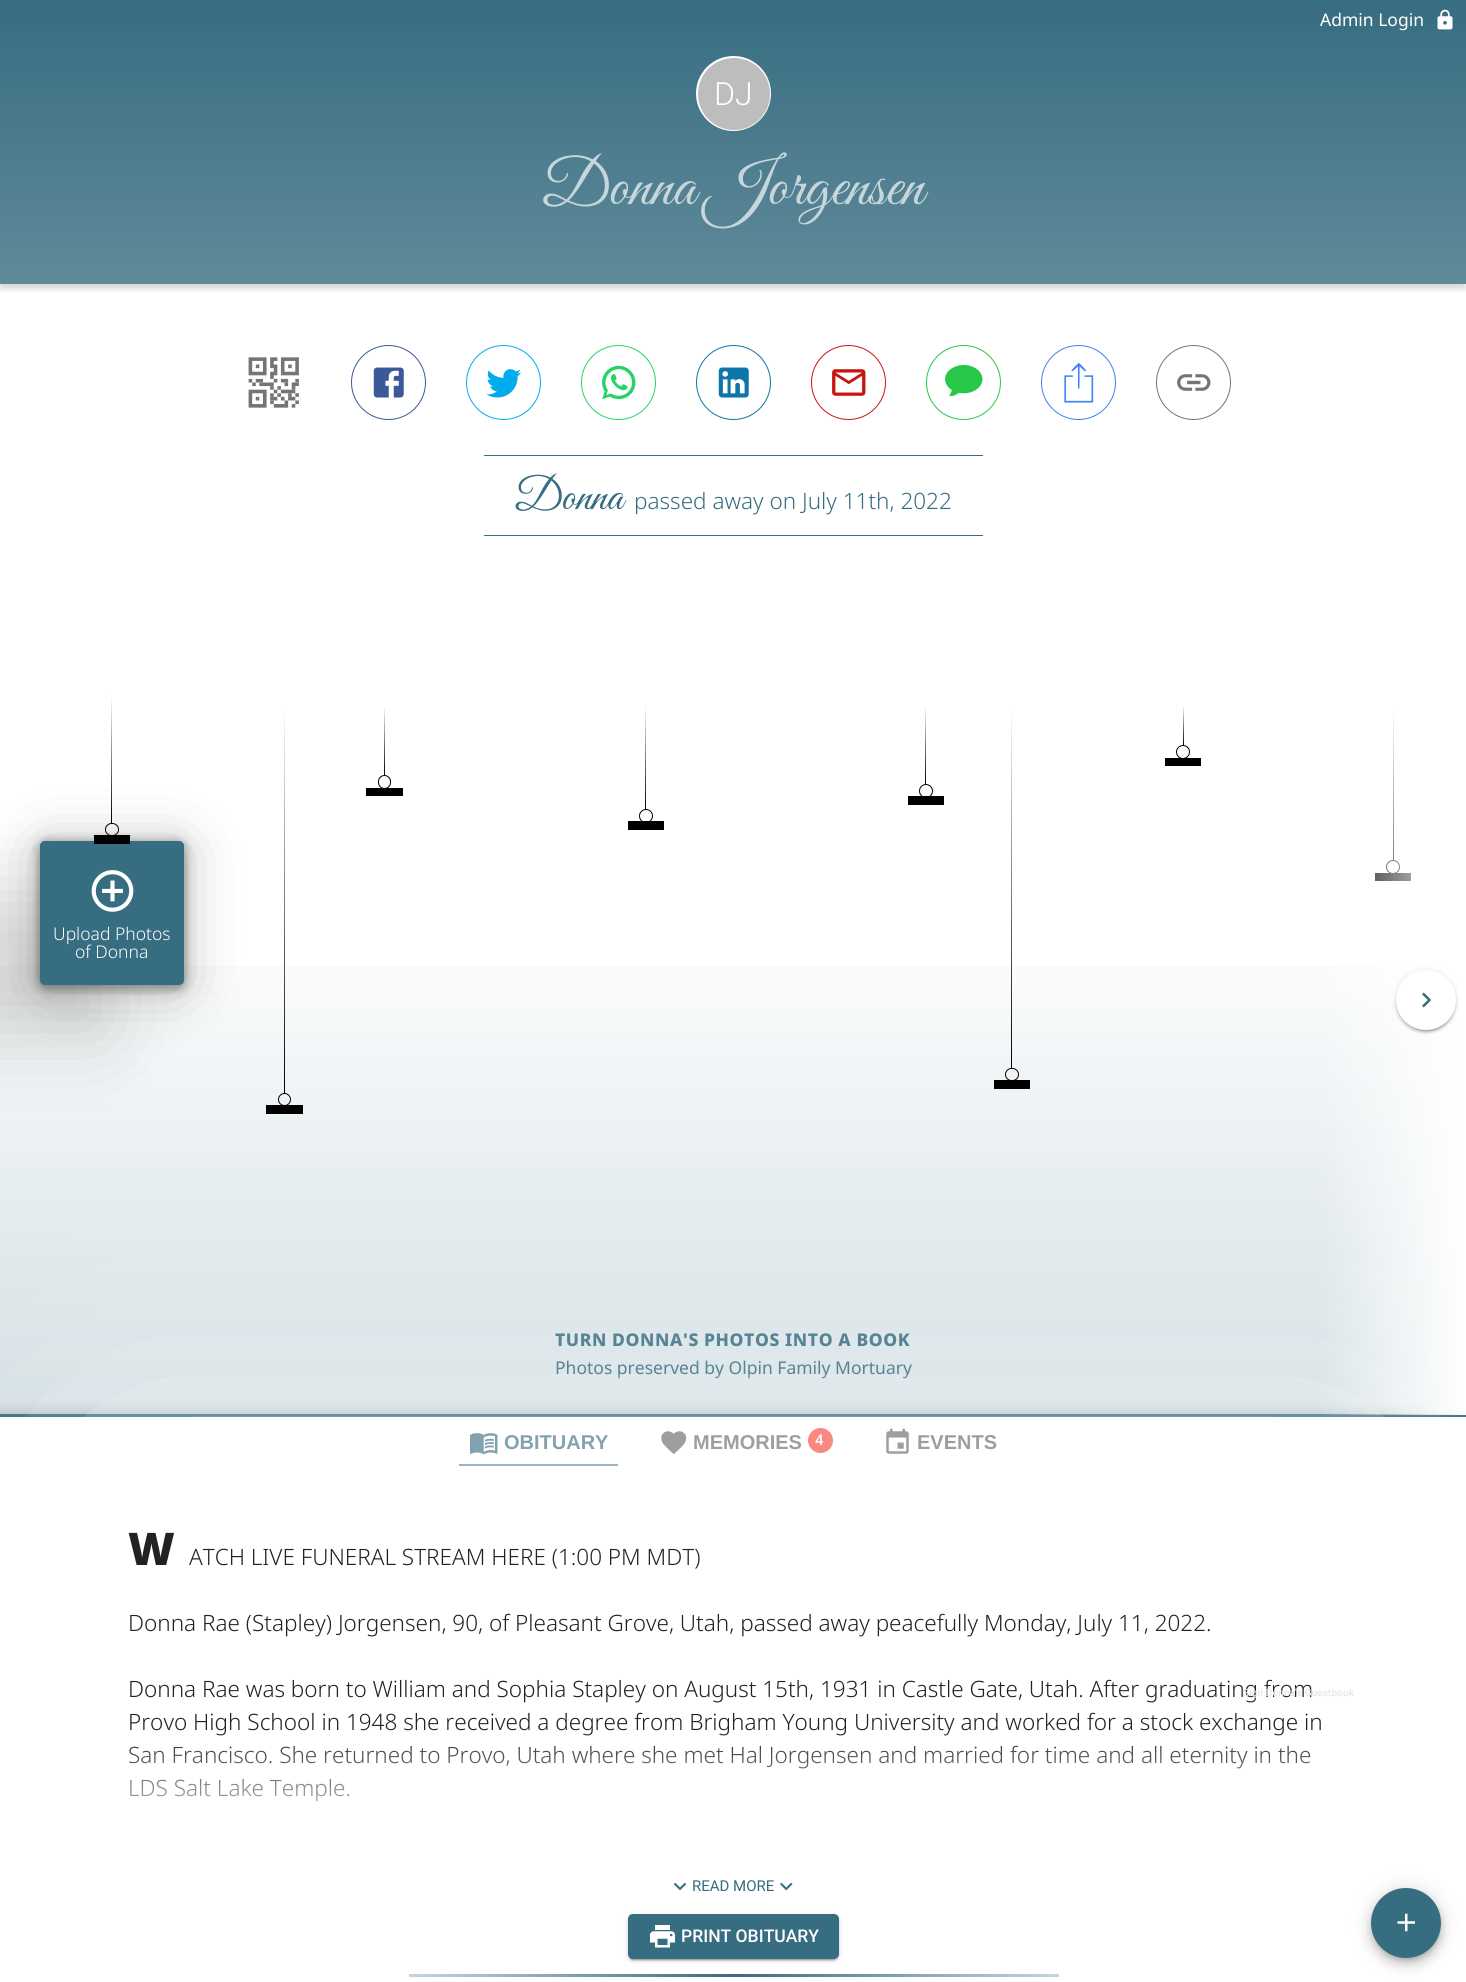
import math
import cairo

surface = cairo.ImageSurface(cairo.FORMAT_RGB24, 1466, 1982)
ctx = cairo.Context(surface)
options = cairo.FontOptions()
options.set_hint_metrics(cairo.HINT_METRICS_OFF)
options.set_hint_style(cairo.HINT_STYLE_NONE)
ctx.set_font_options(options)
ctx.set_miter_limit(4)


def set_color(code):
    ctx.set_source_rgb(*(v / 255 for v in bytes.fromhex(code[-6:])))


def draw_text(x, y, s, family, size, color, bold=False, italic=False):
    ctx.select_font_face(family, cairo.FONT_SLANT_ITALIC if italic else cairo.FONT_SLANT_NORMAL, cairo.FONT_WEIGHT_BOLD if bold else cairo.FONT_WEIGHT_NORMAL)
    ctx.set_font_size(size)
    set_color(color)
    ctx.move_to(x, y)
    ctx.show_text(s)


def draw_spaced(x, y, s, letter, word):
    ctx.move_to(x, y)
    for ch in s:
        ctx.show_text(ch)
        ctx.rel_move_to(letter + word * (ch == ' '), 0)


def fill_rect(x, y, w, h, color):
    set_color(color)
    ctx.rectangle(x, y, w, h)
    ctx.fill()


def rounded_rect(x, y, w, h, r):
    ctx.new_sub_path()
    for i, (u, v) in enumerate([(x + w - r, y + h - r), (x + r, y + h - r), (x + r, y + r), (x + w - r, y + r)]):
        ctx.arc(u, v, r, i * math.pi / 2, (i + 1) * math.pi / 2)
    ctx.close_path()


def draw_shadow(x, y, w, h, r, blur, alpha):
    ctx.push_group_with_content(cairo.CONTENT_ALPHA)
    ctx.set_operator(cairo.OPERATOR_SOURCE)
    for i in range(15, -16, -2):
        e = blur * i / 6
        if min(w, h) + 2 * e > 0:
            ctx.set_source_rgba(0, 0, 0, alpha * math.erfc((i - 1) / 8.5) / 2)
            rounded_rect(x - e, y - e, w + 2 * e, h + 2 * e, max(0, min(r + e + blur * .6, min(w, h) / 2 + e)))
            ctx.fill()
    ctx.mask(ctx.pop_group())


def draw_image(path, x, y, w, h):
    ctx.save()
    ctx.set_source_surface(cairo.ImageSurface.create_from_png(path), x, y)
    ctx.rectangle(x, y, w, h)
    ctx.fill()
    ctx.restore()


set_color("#ffffff")
ctx.paint()
set_color("#000000")
draw_shadow(0, 5, 1466, 284, 0, 2.5, 0.15)
gradient = cairo.LinearGradient(733, 0, 733, 284)
gradient.add_color_stop_rgba(0, 0.216, 0.427, 0.506, 1)
gradient.add_color_stop_rgba(1, 0.373, 0.541, 0.604, 1)
ctx.set_source(gradient)
ctx.rectangle(0, 0, 1466, 284)
ctx.fill()
draw_text(1320, 26, "Admin Login", "Noto Sans", 17.5, "#ffffff")
draw_image("assets/img1.png", 1437, 9, 16, 21)
ctx.arc(733.5, 93.5, 37.5, 0, 2 * math.pi)
ctx.fill()
set_color("#bdbdbd")
ctx.arc(734, 94, 36, 0, 2 * math.pi)
ctx.fill()
draw_text(714, 105, "DJ", "Roboto Light", 32, "#ffffff")
ctx.select_font_face("Great Vibes")
ctx.set_font_size(64)
set_color("#c6d6db")
draw_spaced(541, 204, "Donna Jorgensen", 0, -2)
draw_image("assets/img2.png", 248, 357, 51, 51)
ctx.arc(388.5, 382.5, 37, 0, 2 * math.pi)
set_color("#3b5998")
ctx.set_line_width(1)
ctx.stroke()
draw_image("assets/img3.png", 373, 367, 31, 31)
ctx.arc(503.5, 382.5, 37, 0, 2 * math.pi)
set_color("#00acee")
ctx.stroke()
draw_image("assets/img4.png", 486, 369, 35, 29)
ctx.arc(618.5, 382.5, 37, 0, 2 * math.pi)
set_color("#25d366")
ctx.stroke()
draw_image("assets/img5.png", 602, 365, 34, 35)
ctx.arc(733.5, 382.5, 37, 0, 2 * math.pi)
set_color("#0e76a8")
ctx.stroke()
draw_image("assets/img6.png", 718, 367, 31, 31)
ctx.arc(848.5, 382.5, 37, 0, 2 * math.pi)
set_color("#c71610")
ctx.stroke()
draw_image("assets/img7.png", 832, 369, 34, 27)
ctx.arc(963.5, 382.5, 37, 0, 2 * math.pi)
set_color("#27c848")
ctx.stroke()
draw_image("assets/img8.png", 945, 365, 38, 32)
ctx.arc(1078.5, 382.5, 37, 0, 2 * math.pi)
set_color("#3e80f5")
ctx.stroke()
draw_image("assets/img9.png", 1064, 363, 30, 40)
ctx.arc(1193.5, 382.5, 37, 0, 2 * math.pi)
set_color("#757575")
ctx.stroke()
draw_image("assets/img10.png", 1177, 374, 34, 17)
fill_rect(484, 455, 499, 1, "#376d81")
fill_rect(484, 535, 499, 1, "#376d81")
draw_text(514, 509, "Donna", "Great Vibes", 45, "#376d81")
draw_text(634, 509, "passed away on July 11th, 2022", "Noto Sans Light", 22.5, "#376d81")
ctx.save()
ctx.rectangle(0, 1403, 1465, 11)
ctx.clip()
set_color("#000000")
draw_shadow(-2, 1414, 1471, 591, 0, 7.5, 0.25)
ctx.restore()
gradient = cairo.LinearGradient(733, 586, 733, 1414)
gradient.add_color_stop_rgba(0.4, 0.216, 0.427, 0.506, 0)
gradient.add_color_stop_rgba(1, 0.216, 0.427, 0.506, 0.22)
ctx.set_source(gradient)
ctx.rectangle(0, 966, 1465, 448)
ctx.fill()
fill_rect(0, 1414, 1466, 3, "#376d81")
gradient = cairo.LinearGradient(284, 705, 284, 1093)
gradient.add_color_stop_rgba(0, 1, 1, 1, 1)
gradient.add_color_stop_rgba(1, 0, 0, 0, 1)
ctx.set_source(gradient)
ctx.rectangle(284, 705, 1, 388)
ctx.fill()
fill_rect(266, 1105, 37, 9, "#000000")
ctx.arc(284.5, 1099.5, 6, 0, 2 * math.pi)
ctx.stroke()
gradient = cairo.LinearGradient(384, 705, 384, 775)
gradient.add_color_stop_rgba(0, 1, 1, 1, 1)
gradient.add_color_stop_rgba(1, 0, 0, 0, 1)
ctx.set_source(gradient)
ctx.rectangle(384, 705, 1, 70)
ctx.fill()
fill_rect(366, 788, 37, 8, "#000000")
rounded_rect(378.5, 775.5, 12, 13, 6)
ctx.stroke()
gradient = cairo.LinearGradient(646, 705, 646, 809)
gradient.add_color_stop_rgba(0, 1, 1, 1, 1)
gradient.add_color_stop_rgba(1, 0, 0, 0, 1)
ctx.set_source(gradient)
ctx.rectangle(645, 705, 1, 104)
ctx.fill()
fill_rect(628, 821, 36, 9, "#000000")
ctx.arc(646, 816, 6.5, 0, 2 * math.pi)
ctx.stroke()
gradient = cairo.LinearGradient(926, 705, 926, 784)
gradient.add_color_stop_rgba(0, 1, 1, 1, 1)
gradient.add_color_stop_rgba(1, 0, 0, 0, 1)
ctx.set_source(gradient)
ctx.rectangle(925, 705, 1, 79)
ctx.fill()
fill_rect(908, 796, 36, 9, "#000000")
ctx.arc(926, 791, 6.5, 0, 2 * math.pi)
ctx.stroke()
gradient = cairo.LinearGradient(1012, 705, 1012, 1068)
gradient.add_color_stop_rgba(0, 1, 1, 1, 1)
gradient.add_color_stop_rgba(1, 0, 0, 0, 1)
ctx.set_source(gradient)
ctx.rectangle(1011, 705, 1, 363)
ctx.fill()
fill_rect(994, 1080, 36, 9, "#000000")
rounded_rect(1005.5, 1068.5, 13, 12, 6)
ctx.stroke()
gradient = cairo.LinearGradient(1183, 705, 1183, 745)
gradient.add_color_stop_rgba(0, 1, 1, 1, 1)
gradient.add_color_stop_rgba(1, 0, 0, 0, 1)
ctx.set_source(gradient)
ctx.rectangle(1183, 705, 1, 40)
ctx.fill()
fill_rect(1165, 758, 36, 8, "#000000")
ctx.arc(1183, 752, 6.5, 0, 2 * math.pi)
ctx.stroke()
gradient = cairo.LinearGradient(1393, 705, 1393, 860)
gradient.add_color_stop_rgba(0, 1, 1, 1, 1)
gradient.add_color_stop_rgba(1, 0, 0, 0, 1)
ctx.set_source(gradient)
ctx.rectangle(1393, 705, 1, 155)
ctx.fill()
fill_rect(1375, 873, 36, 8, "#000000")
ctx.arc(1393, 867, 6.5, 0, 2 * math.pi)
ctx.stroke()
set_color("#000000")
draw_shadow(40, 846, 144, 144, 5, 27.5, 0.25)
draw_shadow(-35, 896, 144, 144, 5, 40, 0.15)
gradient = cairo.LinearGradient(112, 695, 112, 822)
gradient.add_color_stop_rgba(0, 1, 1, 1, 1)
gradient.add_color_stop_rgba(1, 0, 0, 0, 1)
ctx.set_source(gradient)
ctx.rectangle(111, 695, 1, 128)
ctx.fill()
set_color("#000000")
draw_shadow(38, 841, 148, 149, 8, 5, 0.35)
set_color("#376d81")
rounded_rect(40, 841, 144, 144, 5)
ctx.fill()
fill_rect(94, 835, 36, 9, "#000000")
rounded_rect(105.5, 823.5, 13, 12, 6)
ctx.stroke()
draw_image("assets/img11.png", 91, 870, 43, 42)
draw_text(53, 940, "Upload Photos", "Noto Sans Light", 17.5, "#ffffff")
draw_text(75, 958, "of Donna", "Noto Sans Light", 17.5, "#ffffff")
gradient = cairo.LinearGradient(1320, 1000, 1466, 1000)
gradient.add_color_stop_rgba(0, 1, 1, 1, 0)
gradient.add_color_stop_rgba(1, 1, 1, 1, 1)
ctx.set_source(gradient)
ctx.rectangle(1323, 708, 143, 707)
ctx.fill()
set_color("#000000")
draw_shadow(1396, 971, 60, 60, 30, 3, 0.12)
draw_shadow(1396, 973, 60, 60, 30, 1, 0.14)
draw_shadow(1399, 976, 55, 55, 27.5, 0.5, 0.2)
set_color("#ffffff")
ctx.arc(1426, 1000, 30, 0, 2 * math.pi)
ctx.fill()
draw_image("assets/img12.png", 1422, 992, 10, 16)
ctx.select_font_face("Noto Sans ExtraBold")
set_color("#376d81")
draw_spaced(555, 1346, "TURN DONNA'S PHOTOS INTO A BOOK", 0.6, 0)
draw_text(555, 1374, "Photos preserved by Olpin Family Mortuary", "Noto Sans", 17.5, "#376d81")
draw_image("assets/img13.png", 470, 1433, 28, 22)
draw_text(504, 1449, "OBITUARY", "Liberation Sans", 20, "#376d81", bold=True)
draw_image("assets/img14.png", 661, 1431, 26, 24)
draw_text(693, 1449, "MEMORIES", "Liberation Sans", 20, "#666666", bold=True)
set_color("#f44336")
ctx.new_path()
ctx.arc(820.5, 1440.5, 12.5, 0, 2 * math.pi)
ctx.fill()
draw_text(815, 1445, "4", "Roboto Medium", 15, "#ffffff")
draw_image("assets/img15.png", 886, 1428, 23, 26)
draw_text(917, 1449, "EVENTS", "Liberation Sans", 20, "#666666", bold=True)
fill_rect(459, 1464, 159, 2, "#376d81")
set_color("#ffffff")
draw_shadow(124, 1479, 1220, 420, 0, 125, 1)
draw_text(128, 1565, "W", "Noto Sans Black", 45, "#222222")
draw_text(189, 1565, "ATCH LIVE FUNERAL STREAM HERE (1:00 PM MDT)", "Noto Sans Light", 22.5, "#222222")
draw_text(128, 1631, "Donna Rae (Stapley) Jorgensen, 90, of Pleasant Grove, Utah, passed away peacefully Monday, July 11, 2022.", "Noto Sans Light", 22.5, "#222222")
draw_text(128, 1697, "Donna Rae was born to William and Sophia Stapley on August 15th, 1931 in Castle Gate, Utah. After graduating from", "Noto Sans Light", 22.5, "#222222")
draw_text(128, 1730, "Provo High School in 1948 she received a degree from Brigham Young University and worked for a stock exchange in", "Noto Sans Light", 22.5, "#222222")
draw_text(128, 1763, "San Francisco. She returned to Provo, Utah where she met Hal Jorgensen and married for time and all eternity in the", "Noto Sans Light", 22.5, "#222222")
draw_text(128, 1796, "LDS Salt Lake Temple.", "Noto Sans Light", 22.5, "#222222")
gradient = cairo.LinearGradient(734, 1854, 734, 1729)
gradient.add_color_stop_rgba(0, 1, 1, 1, 1)
gradient.add_color_stop_rgba(1, 1, 1, 1, 0)
ctx.set_source(gradient)
ctx.rectangle(129, 1732, 1182, 70)
ctx.fill()
draw_image("assets/img16.png", 673, 1882, 14, 9)
draw_text(692, 1891, "READ MORE", "Roboto", 15, "#376d81")
draw_image("assets/img17.png", 780, 1882, 13, 9)
set_color("#000000")
draw_shadow(628, 1915, 211, 45, 5, 3, 0.12)
draw_shadow(628, 1916, 211, 45, 5, 1, 0.14)
draw_shadow(630, 1920, 206, 40, 2.5, 0.5, 0.2)
set_color("#376d81")
rounded_rect(628, 1914, 211, 45, 5)
ctx.fill()
draw_image("assets/img18.png", 650, 1925, 25, 23)
draw_text(681, 1942, "PRINT OBITUARY", "Roboto Medium", 17.5, "#ffffff")
gradient = cairo.LinearGradient(1189, 1975, 279, 1975)
gradient.add_color_stop_rgba(0, 1, 1, 1, 1)
gradient.add_color_stop_rgba(0.5, 0.216, 0.427, 0.506, 1)
gradient.add_color_stop_rgba(1, 1, 1, 1, 1)
ctx.set_source(gradient)
ctx.rectangle(409, 1974, 650, 3)
ctx.fill()
ctx.set_font_size(10)
set_color("#e6e6e6")
draw_spaced(1243, 1696, "Sign Donna's Guestbook", 0.1, 0)
set_color("#000000")
draw_shadow(1371, 1889, 70, 70, 35, 11, 0.12)
draw_shadow(1371, 1895, 70, 70, 35, 6, 0.14)
draw_shadow(1373, 1893, 67, 67, 33.5, 3, 0.2)
set_color("#376d81")
ctx.arc(1406, 1923, 35, 0, 2 * math.pi)
ctx.fill()
draw_image("assets/img19.png", 1397, 1913, 18, 19)
surface.write_to_png("output.png")
